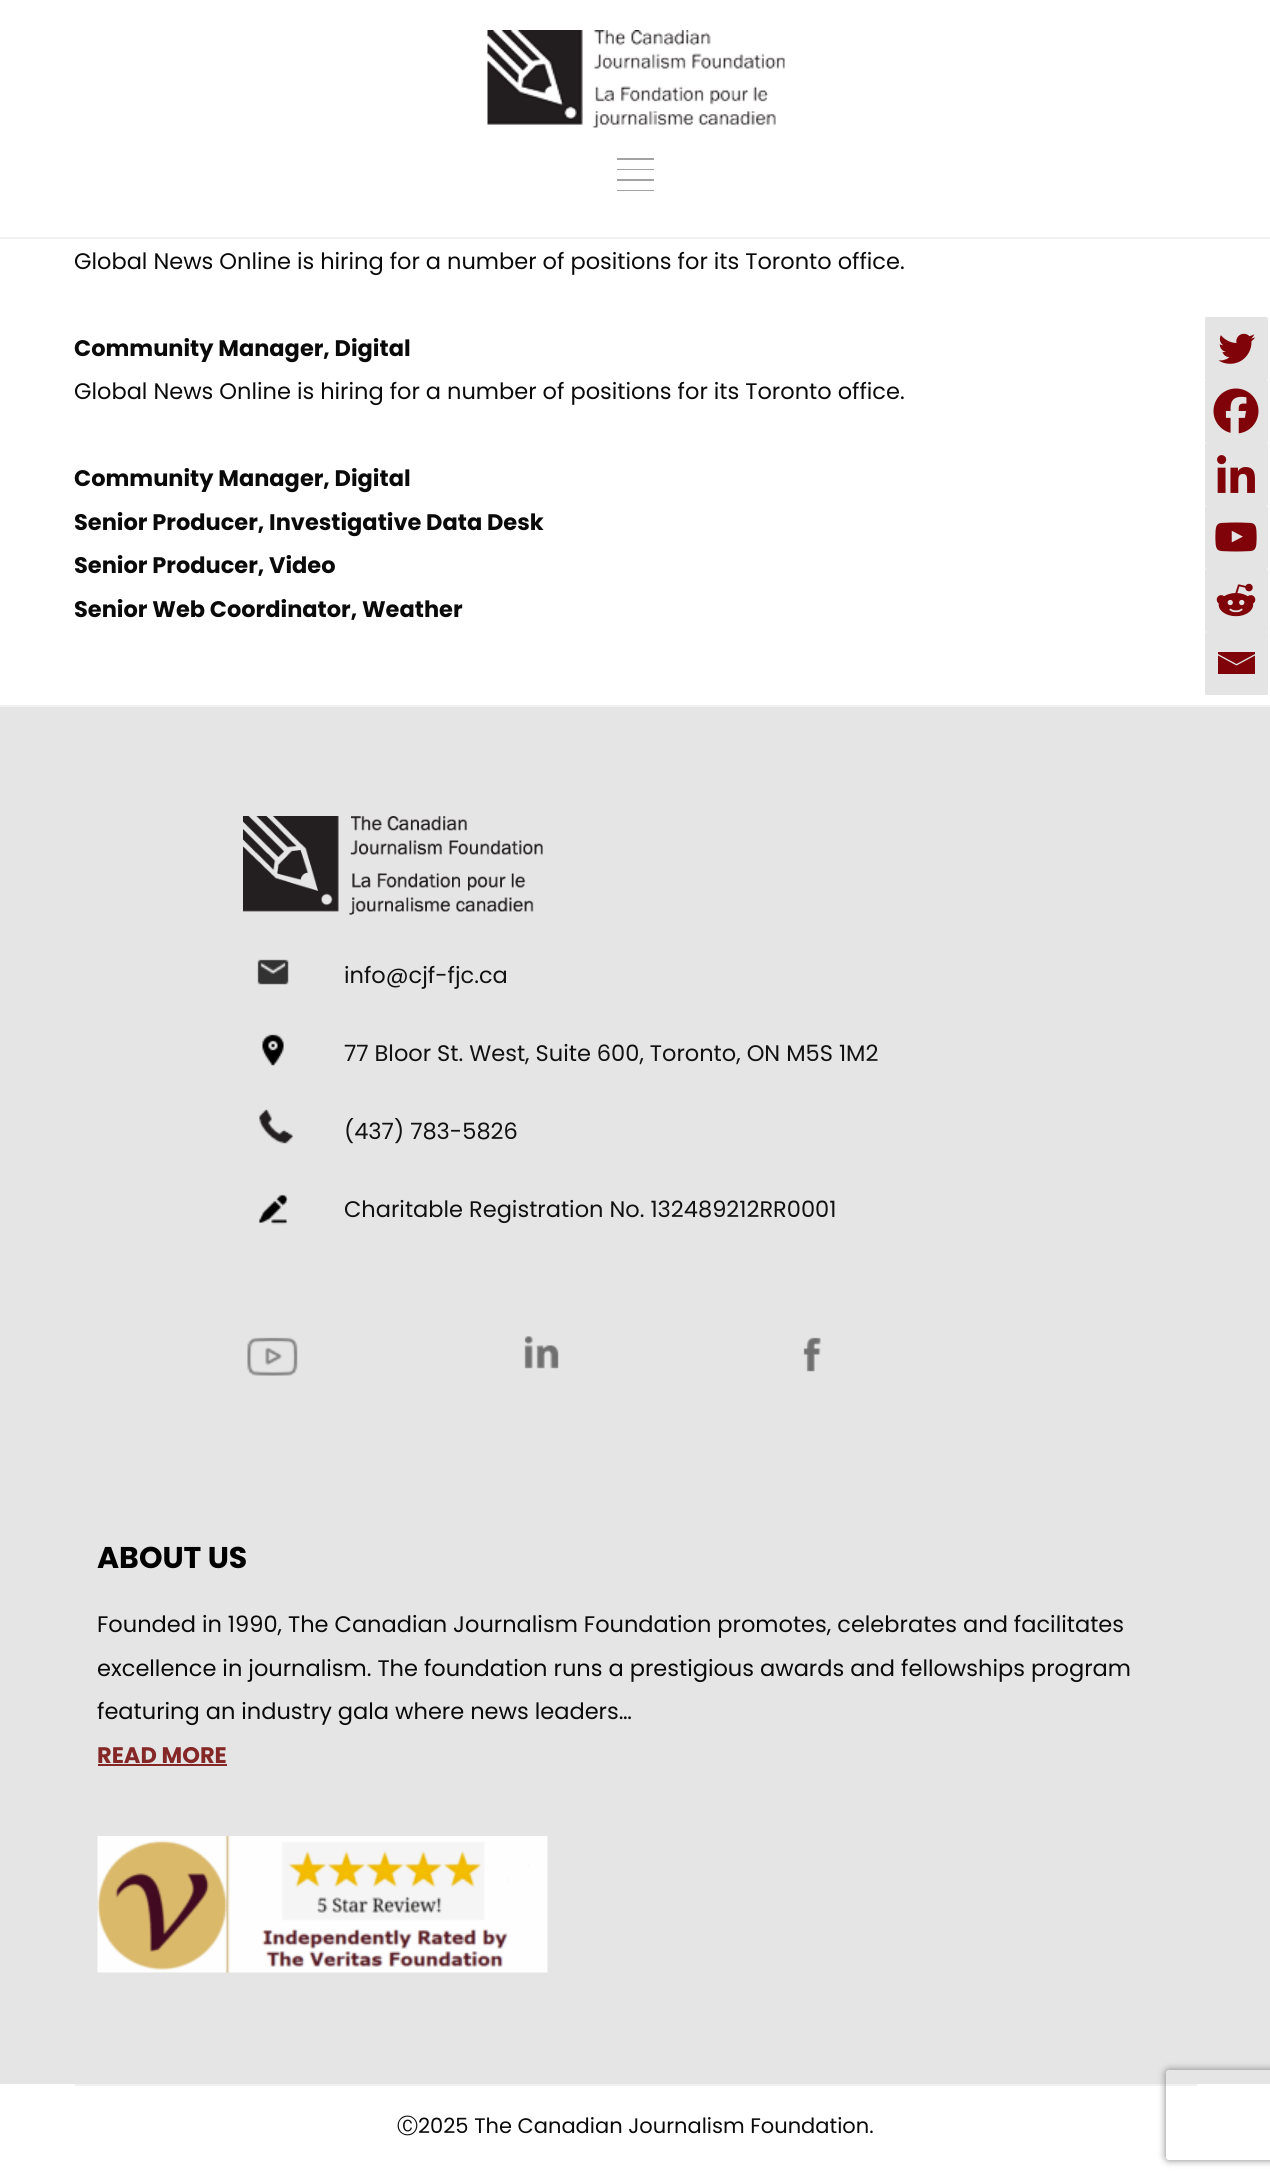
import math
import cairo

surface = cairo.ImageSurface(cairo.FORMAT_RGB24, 1270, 2180)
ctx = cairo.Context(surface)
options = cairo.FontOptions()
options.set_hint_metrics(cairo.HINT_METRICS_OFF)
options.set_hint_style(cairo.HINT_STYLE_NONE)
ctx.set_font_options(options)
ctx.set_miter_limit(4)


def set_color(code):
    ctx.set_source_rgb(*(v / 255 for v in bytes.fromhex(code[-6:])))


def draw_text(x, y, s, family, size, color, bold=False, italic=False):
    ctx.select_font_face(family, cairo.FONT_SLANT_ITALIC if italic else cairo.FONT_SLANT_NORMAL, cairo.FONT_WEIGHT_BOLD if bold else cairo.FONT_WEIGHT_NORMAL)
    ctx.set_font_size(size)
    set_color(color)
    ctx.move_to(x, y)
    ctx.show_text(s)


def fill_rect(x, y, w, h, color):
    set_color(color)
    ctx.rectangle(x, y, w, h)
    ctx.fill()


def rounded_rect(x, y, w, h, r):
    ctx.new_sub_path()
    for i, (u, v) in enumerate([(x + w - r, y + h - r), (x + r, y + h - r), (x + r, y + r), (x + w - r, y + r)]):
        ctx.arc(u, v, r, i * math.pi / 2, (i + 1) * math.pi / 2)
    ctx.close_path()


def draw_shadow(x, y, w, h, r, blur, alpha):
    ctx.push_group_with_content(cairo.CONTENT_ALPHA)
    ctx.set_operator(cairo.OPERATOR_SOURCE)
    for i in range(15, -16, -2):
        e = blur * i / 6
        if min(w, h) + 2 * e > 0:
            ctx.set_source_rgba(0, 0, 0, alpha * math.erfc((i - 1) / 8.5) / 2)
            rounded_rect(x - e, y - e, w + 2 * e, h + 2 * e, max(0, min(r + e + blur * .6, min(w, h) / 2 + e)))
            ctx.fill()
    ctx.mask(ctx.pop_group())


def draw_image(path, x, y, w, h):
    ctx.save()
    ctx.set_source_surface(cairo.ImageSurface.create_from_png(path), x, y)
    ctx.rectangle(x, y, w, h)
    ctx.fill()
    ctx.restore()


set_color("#ffffff")
ctx.paint()
fill_rect(0, 237, 1270, 2, "#f1f1f1")
draw_image("assets/img1.png", 487, 30, 298, 98)
fill_rect(617, 158, 37, 2, "#a3a3a3")
fill_rect(617, 169, 37, 1, "#a3a3a3")
fill_rect(617, 179, 37, 2, "#a3a3a3")
fill_rect(617, 190, 37, 1, "#a3a3a3")
draw_text(74, 269, "Global News Online is hiring for a number of positions for its Toronto office.", "Poppins", 22.5, "#0a0a0a")
draw_text(74, 356, "Community Manager, Digital", "Poppins", 22.5, "#0a0a0a", bold=True)
set_color("#e4e4e4")
rounded_rect(1206, 318, 61, 61, 0.5)
ctx.fill_preserve()
ctx.stroke()
draw_image("assets/img2.png", 1218, 333, 38, 31)
rounded_rect(1206, 381, 61, 61, 0.5)
ctx.fill_preserve()
ctx.stroke()
draw_image("assets/img3.png", 1213, 388, 46, 46)
rounded_rect(1206, 444, 61, 61, 0.5)
ctx.fill_preserve()
ctx.stroke()
draw_image("assets/img4.png", 1217, 455, 38, 38)
rounded_rect(1206, 507, 61, 61, 0.5)
ctx.fill_preserve()
ctx.stroke()
draw_image("assets/img5.png", 1215, 522, 42, 30)
rounded_rect(1206, 570, 61, 61, 0.5)
ctx.fill_preserve()
ctx.stroke()
draw_image("assets/img6.png", 1216, 583, 40, 34)
rounded_rect(1206, 633, 61, 61, 0.5)
ctx.fill_preserve()
ctx.stroke()
set_color("#7f0308")
ctx.new_path()
ctx.move_to(1216.5, 652)
ctx.line_to(1255, 652)
ctx.line_to(1255, 654)
ctx.line_to(1236.5, 664)
ctx.line_to(1218, 654)
ctx.line_to(1218, 652)
ctx.move_to(1218, 655.5)
ctx.line_to(1236.5, 665.5)
ctx.line_to(1255, 655.5)
ctx.line_to(1255, 674)
ctx.line_to(1218, 674)
ctx.line_to(1218, 655.5)
ctx.fill()
draw_text(74, 399, "Global News Online is hiring for a number of positions for its Toronto office.", "Poppins", 22.5, "#0a0a0a")
draw_text(74, 486, "Community Manager, Digital", "Poppins", 22.5, "#0a0a0a", bold=True)
draw_text(74, 530, "Senior Producer, Investigative Data Desk", "Poppins", 22.5, "#0a0a0a", bold=True)
draw_text(74, 573, "Senior Producer, Video", "Poppins", 22.5, "#0a0a0a", bold=True)
draw_text(74, 617, "Senior Web Coordinator, Weather", "Poppins", 22.5, "#0a0a0a", bold=True)
fill_rect(0, 707, 1270, 1377, "#e5e5e5")
fill_rect(0, 705, 1270, 2, "#f1f1f1")
draw_image("assets/img7.png", 243, 816, 300, 99)
draw_image("assets/img8.png", 257, 959, 32, 26)
draw_text(344, 983, "info@cjf-fjc.ca", "Poppins", 22.5, "#111111")
draw_image("assets/img9.png", 262, 1034, 22, 32)
draw_text(344, 1061, "77 Bloor St. West, Suite 600, Toronto, ON M5S 1M2", "Poppins", 22.5, "#111111")
draw_image("assets/img10.png", 259, 1109, 34, 35)
draw_text(344, 1139, "(437) 783-5826", "Poppins", 22.5, "#111111")
draw_image("assets/img11.png", 258, 1194, 31, 31)
draw_text(344, 1217, "Charitable Registration No. 132489212RR0001", "Poppins", 22.5, "#111111")
draw_image("assets/img12.png", 247, 1337, 51, 39)
draw_image("assets/img13.png", 524, 1336, 35, 33)
draw_image("assets/img14.png", 803, 1337, 18, 35)
draw_text(97, 1568, "ABOUT US", "Poppins", 30, "#000000", bold=True)
draw_text(97, 1632, "Founded in 1990, The Canadian Journalism Foundation promotes, celebrates and facilitates", "Poppins", 22.5, "#0a0a0a")
draw_text(97, 1676, "excellence in journalism. The foundation runs a prestigious awards and fellowships program", "Poppins", 22.5, "#0a0a0a")
draw_text(97, 1719, "featuring an industry gala where news leaders…", "Poppins", 22.5, "#0a0a0a")
draw_text(97, 1763, "READ MORE", "Poppins", 22.5, "#852727", bold=True)
fill_rect(98, 1764, 129, 2, "#852727")
draw_image("assets/img15.png", 97, 1836, 451, 137)
fill_rect(75, 2084, 1122, 2, "#f1f1f1")
draw_text(397, 2133, "Ⓒ", "WenQuanYi Zen Hei Medium", 21, "#0a0a0a")
draw_text(418, 2133, "2025 The Canadian Journalism Foundation.", "Poppins", 21, "#0a0a0a")
ctx.save()
ctx.set_fill_rule(cairo.FILL_RULE_EVEN_ODD)
ctx.new_path()
ctx.move_to(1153, 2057)
ctx.line_to(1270, 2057)
ctx.line_to(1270, 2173)
ctx.line_to(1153, 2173)
ctx.close_path()
ctx.move_to(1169, 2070)
ctx.line_to(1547, 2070)
ctx.curve_to(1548.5, 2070, 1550, 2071.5, 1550, 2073)
ctx.line_to(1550, 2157)
ctx.curve_to(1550, 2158.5, 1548.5, 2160, 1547, 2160)
ctx.line_to(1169, 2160)
ctx.curve_to(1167.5, 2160, 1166, 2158.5, 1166, 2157)
ctx.line_to(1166, 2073)
ctx.curve_to(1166, 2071.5, 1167.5, 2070, 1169, 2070)
ctx.close_path()
ctx.clip()
set_color("#808080")
draw_shadow(1166, 2070, 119, 90, 3, 4, 1)
ctx.restore()
surface.write_to_png("output.png")
